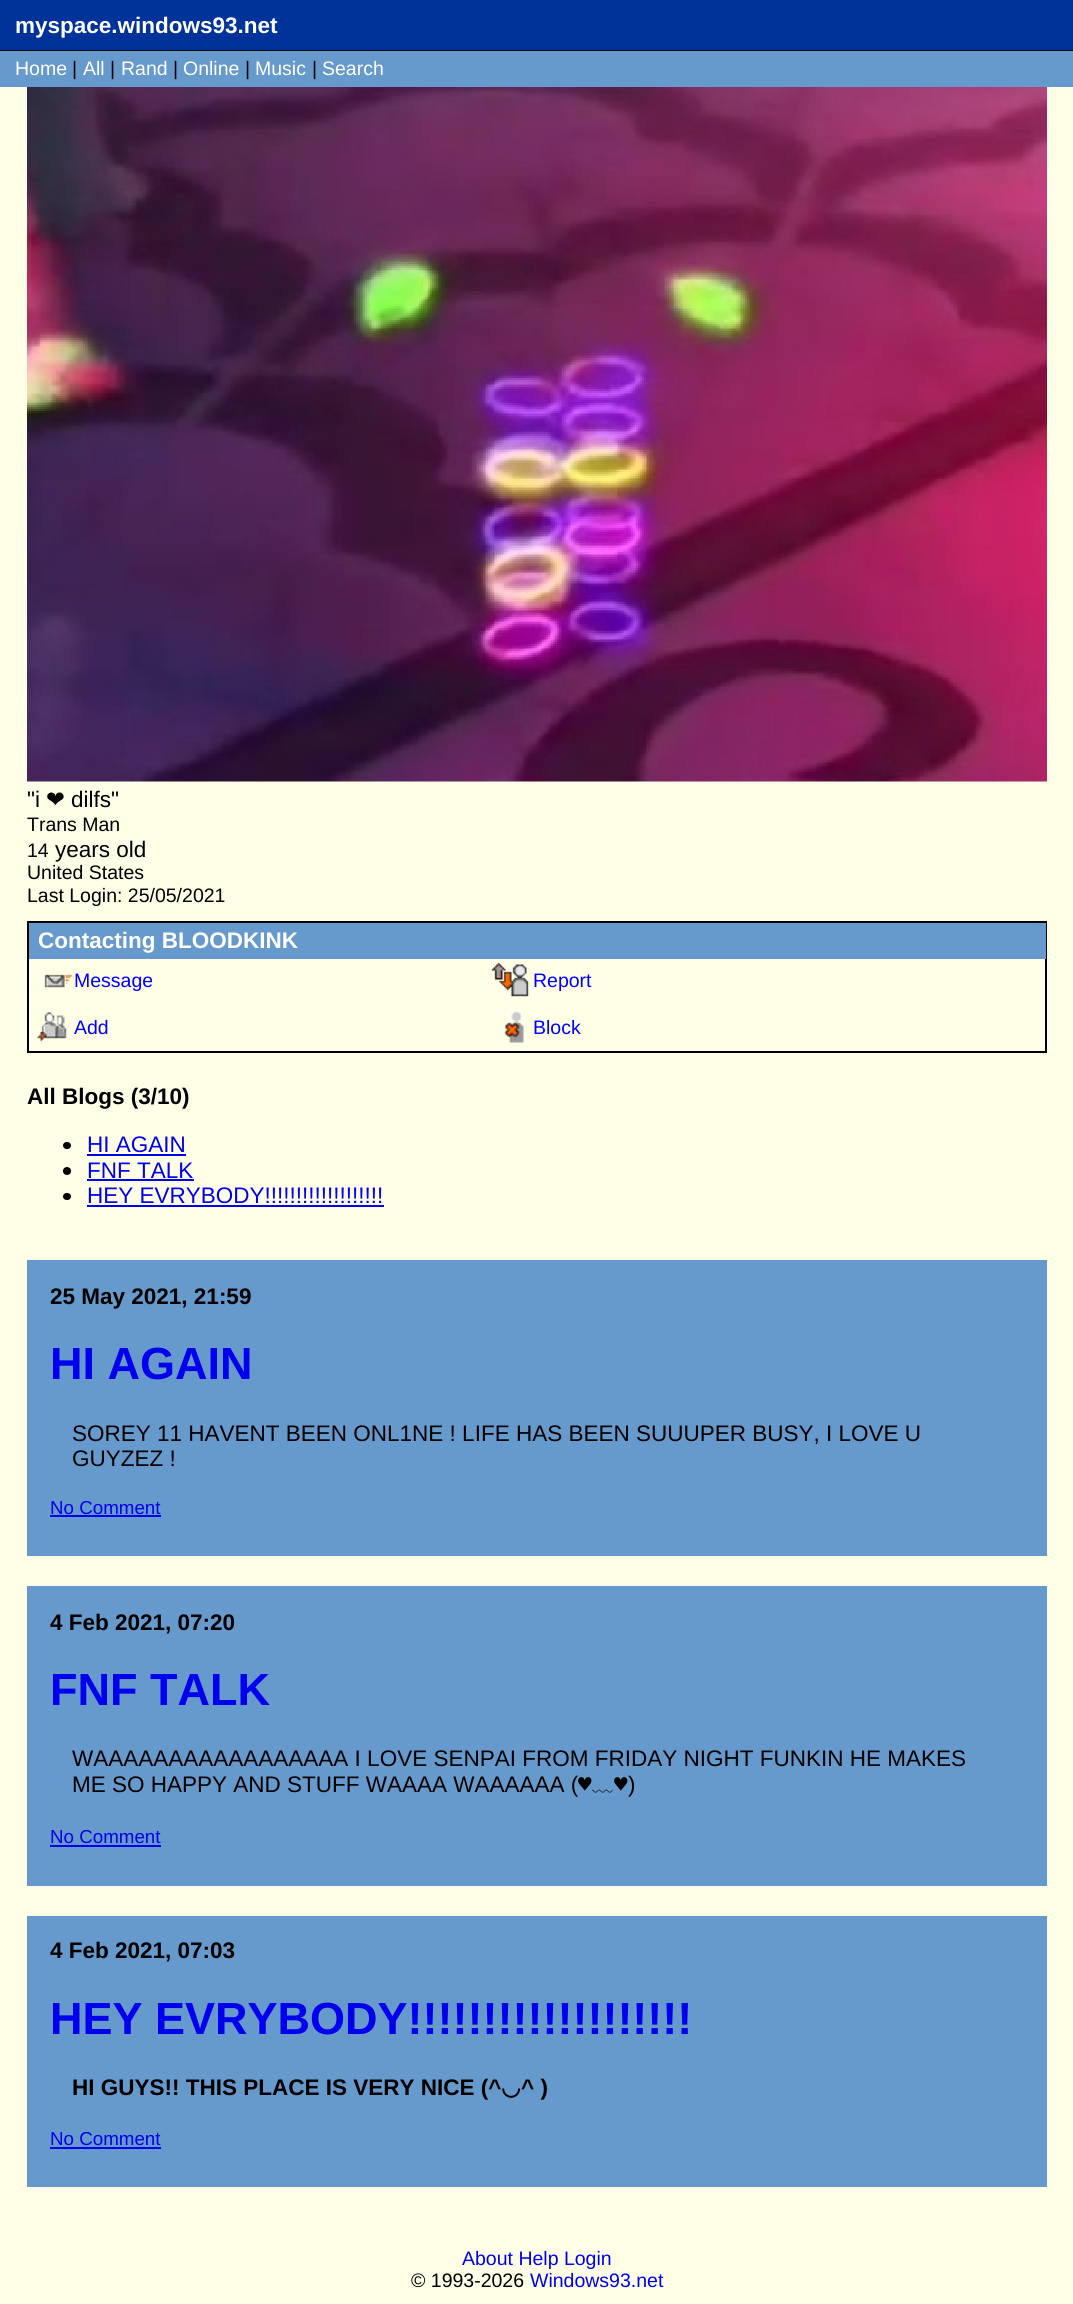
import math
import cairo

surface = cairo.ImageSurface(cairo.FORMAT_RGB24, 1073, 2304)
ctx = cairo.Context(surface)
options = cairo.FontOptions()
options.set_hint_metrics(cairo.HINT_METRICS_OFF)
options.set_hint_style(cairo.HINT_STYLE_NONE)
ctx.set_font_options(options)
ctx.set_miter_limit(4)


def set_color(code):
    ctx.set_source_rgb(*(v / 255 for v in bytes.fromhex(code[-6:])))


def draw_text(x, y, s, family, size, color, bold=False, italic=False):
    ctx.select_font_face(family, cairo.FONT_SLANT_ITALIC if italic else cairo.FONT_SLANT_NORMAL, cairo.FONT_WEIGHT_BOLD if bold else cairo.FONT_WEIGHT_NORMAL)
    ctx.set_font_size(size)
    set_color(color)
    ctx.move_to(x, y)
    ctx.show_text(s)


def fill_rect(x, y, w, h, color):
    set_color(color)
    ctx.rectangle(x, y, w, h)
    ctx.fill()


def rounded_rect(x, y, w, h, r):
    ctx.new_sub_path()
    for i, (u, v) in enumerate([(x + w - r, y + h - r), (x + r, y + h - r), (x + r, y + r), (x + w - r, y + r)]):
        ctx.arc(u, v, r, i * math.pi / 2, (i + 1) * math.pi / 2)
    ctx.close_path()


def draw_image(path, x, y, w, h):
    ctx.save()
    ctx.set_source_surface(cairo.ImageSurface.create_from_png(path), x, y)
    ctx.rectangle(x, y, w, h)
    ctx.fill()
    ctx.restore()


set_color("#ffffe8")
ctx.paint()
fill_rect(0, 0, 1073, 50, "#003399")
fill_rect(0, 50, 1073, 1, "#000000")
draw_text(15, 33, "myspace.windows93.net", "Liberation Sans", 22.5, "#ffffff", bold=True)
fill_rect(0, 51, 1073, 36, "#6699cc")
draw_text(15, 75, "Home", "Liberation Sans", 19.5, "#ffffff")
draw_text(72, 75, "|", "Liberation Sans", 19.5, "#000000")
draw_text(83, 75, "All", "Liberation Sans", 19.5, "#ffffff")
draw_text(110, 75, "|", "Liberation Sans", 19.5, "#000000")
draw_text(121, 75, "Rand", "Liberation Sans", 19.5, "#ffffff")
draw_text(173, 75, "|", "Liberation Sans", 19.5, "#000000")
draw_text(183, 75, "Online", "Liberation Sans", 19.5, "#ffffff")
draw_text(245, 75, "|", "Liberation Sans", 19.5, "#000000")
draw_text(255, 75, "Music", "Liberation Sans", 19.5, "#ffffff")
draw_text(312, 75, "|", "Liberation Sans", 19.5, "#000000")
draw_text(322, 75, "Search", "Liberation Sans", 19.5, "#ffffff")
draw_image("assets/img1.png", 27, 87, 1020, 695)
draw_text(27, 807, "\"i", "Liberation Sans", 22.5, "#000000")
draw_text(46, 807, "❤", "DejaVu Sans", 22.5, "#000000")
draw_text(71, 807, "dilfs\"", "Liberation Sans", 22.5, "#000000")
draw_text(27, 831, "Trans Man", "Liberation Sans", 19.5, "#000000")
draw_text(27, 857, "14", "Liberation Sans", 19.5, "#000000")
draw_text(55, 857, "years old", "Liberation Sans", 22.5, "#000000")
draw_text(27, 879, "United States", "Liberation Sans", 19.5, "#000000")
draw_text(27, 902, "Last Login: 25/05/2021", "Liberation Sans", 19.5, "#000000")
ctx.rectangle(28, 922, 1018, 130)
ctx.stroke()
fill_rect(29, 923, 1017, 36, "#6699cc")
draw_text(38, 948, "Contacting BLOODKINK", "Liberation Sans", 22.5, "#ffffff", bold=True)
draw_image("assets/img2.png", 44, 974, 29, 14)
draw_text(74, 987, "Message", "Liberation Sans", 19.5, "#0000ff")
draw_image("assets/img3.png", 491, 962, 38, 35)
draw_text(533, 987, "Report", "Liberation Sans", 19.5, "#0000ff")
draw_image("assets/img4.png", 37, 1012, 30, 30)
draw_text(74, 1034, "Add", "Liberation Sans", 19.5, "#0000ff")
draw_image("assets/img5.png", 504, 1011, 20, 32)
draw_text(533, 1034, "Block", "Liberation Sans", 19.5, "#0000ff")
draw_text(27, 1104, "All Blogs (3/10)", "Liberation Sans", 22.5, "#000000", bold=True)
rounded_rect(63, 1142, 8, 7, 3.5)
ctx.fill()
draw_text(87, 1152, "HI AGAIN", "Liberation Sans", 22.5, "#0000ee")
fill_rect(87, 1154, 99, 2, "#0000ee")
set_color("#000000")
ctx.new_path()
ctx.arc(67, 1171, 4, 0, 2 * math.pi)
ctx.fill()
draw_text(87, 1178, "FNF TALK", "Liberation Sans", 22.5, "#0000ee")
fill_rect(87, 1179, 107, 2, "#0000ee")
set_color("#000000")
rounded_rect(63, 1193, 8, 7, 3.5)
ctx.fill()
draw_text(87, 1203, "HEY EVRYBODY!!!!!!!!!!!!!!!!!!!", "Liberation Sans", 22.5, "#0000ee")
fill_rect(87, 1205, 297, 2, "#0000ee")
fill_rect(27, 1260, 1020, 296, "#6699cc")
draw_text(50, 1304, "25 May 2021, 21:59", "Liberation Sans", 22.5, "#000000", bold=True)
draw_text(50, 1379, "HI AGAIN", "Liberation Sans", 45, "#0000ee", bold=True)
draw_text(72, 1441, "SOREY 11 HAVENT BEEN ONL1NE ! LIFE HAS BEEN SUUUPER BUSY, I LOVE U", "Liberation Sans", 22.5, "#000000")
draw_text(72, 1466, "GUYZEZ !", "Liberation Sans", 22.5, "#000000")
draw_text(50, 1514, "No Comment", "Liberation Sans", 18.75, "#0000ee")
fill_rect(50, 1515, 111, 2, "#0000ee")
fill_rect(27, 1586, 1020, 300, "#6699cc")
draw_text(50, 1630, "4 Feb 2021, 07:20", "Liberation Sans", 22.5, "#000000", bold=True)
draw_text(50, 1705, "FNF TALK", "Liberation Sans", 45, "#0000ee", bold=True)
draw_text(72, 1766, "WAAAAAAAAAAAAAAAAA I LOVE SENPAI FROM FRIDAY NIGHT FUNKIN HE MAKES", "Liberation Sans", 22.5, "#000000")
draw_text(72, 1792, "ME SO HAPPY AND STUFF WAAAA WAAAAAA (", "Liberation Sans", 22.5, "#000000")
draw_text(578, 1792, "♥", "DejaVu Sans Mono", 22.5, "#000000")
draw_text(592, 1792, "﹏", "WenQuanYi Zen Hei Medium", 22.5, "#000000")
draw_text(614, 1792, "♥", "DejaVu Sans Mono", 22.5, "#000000")
draw_text(628, 1792, ")", "Liberation Sans", 22.5, "#000000")
draw_text(50, 1843, "No Comment", "Liberation Sans", 18.75, "#0000ee")
fill_rect(50, 1845, 111, 2, "#0000ee")
fill_rect(27, 1916, 1020, 271, "#6699cc")
draw_text(50, 1958, "4 Feb 2021, 07:03", "Liberation Sans", 22.5, "#000000", bold=True)
draw_text(50, 2034, "HEY EVRYBODY!!!!!!!!!!!!!!!!!!!", "Liberation Sans", 45, "#0000ee", bold=True)
draw_text(72, 2095, "HI GUYS!! THIS PLACE IS VERY NICE (^", "Liberation Sans", 22.5, "#000000", bold=True)
draw_text(501, 2095, "◡", "DejaVu Sans", 22.5, "#000000", bold=True)
draw_text(521, 2095, "^ )", "Liberation Sans", 22.5, "#000000", bold=True)
draw_text(50, 2145, "No Comment", "Liberation Sans", 18.75, "#0000ee")
fill_rect(50, 2147, 111, 2, "#0000ee")
draw_text(462, 2265, "About Help Login", "Liberation Sans", 19.5, "#0000ee")
draw_text(411, 2287, "© 1993-2026", "Liberation Sans", 19.5, "#000000")
draw_text(530, 2287, "Windows93.net", "Liberation Sans", 19.5, "#0000ee")
surface.write_to_png("output.png")
